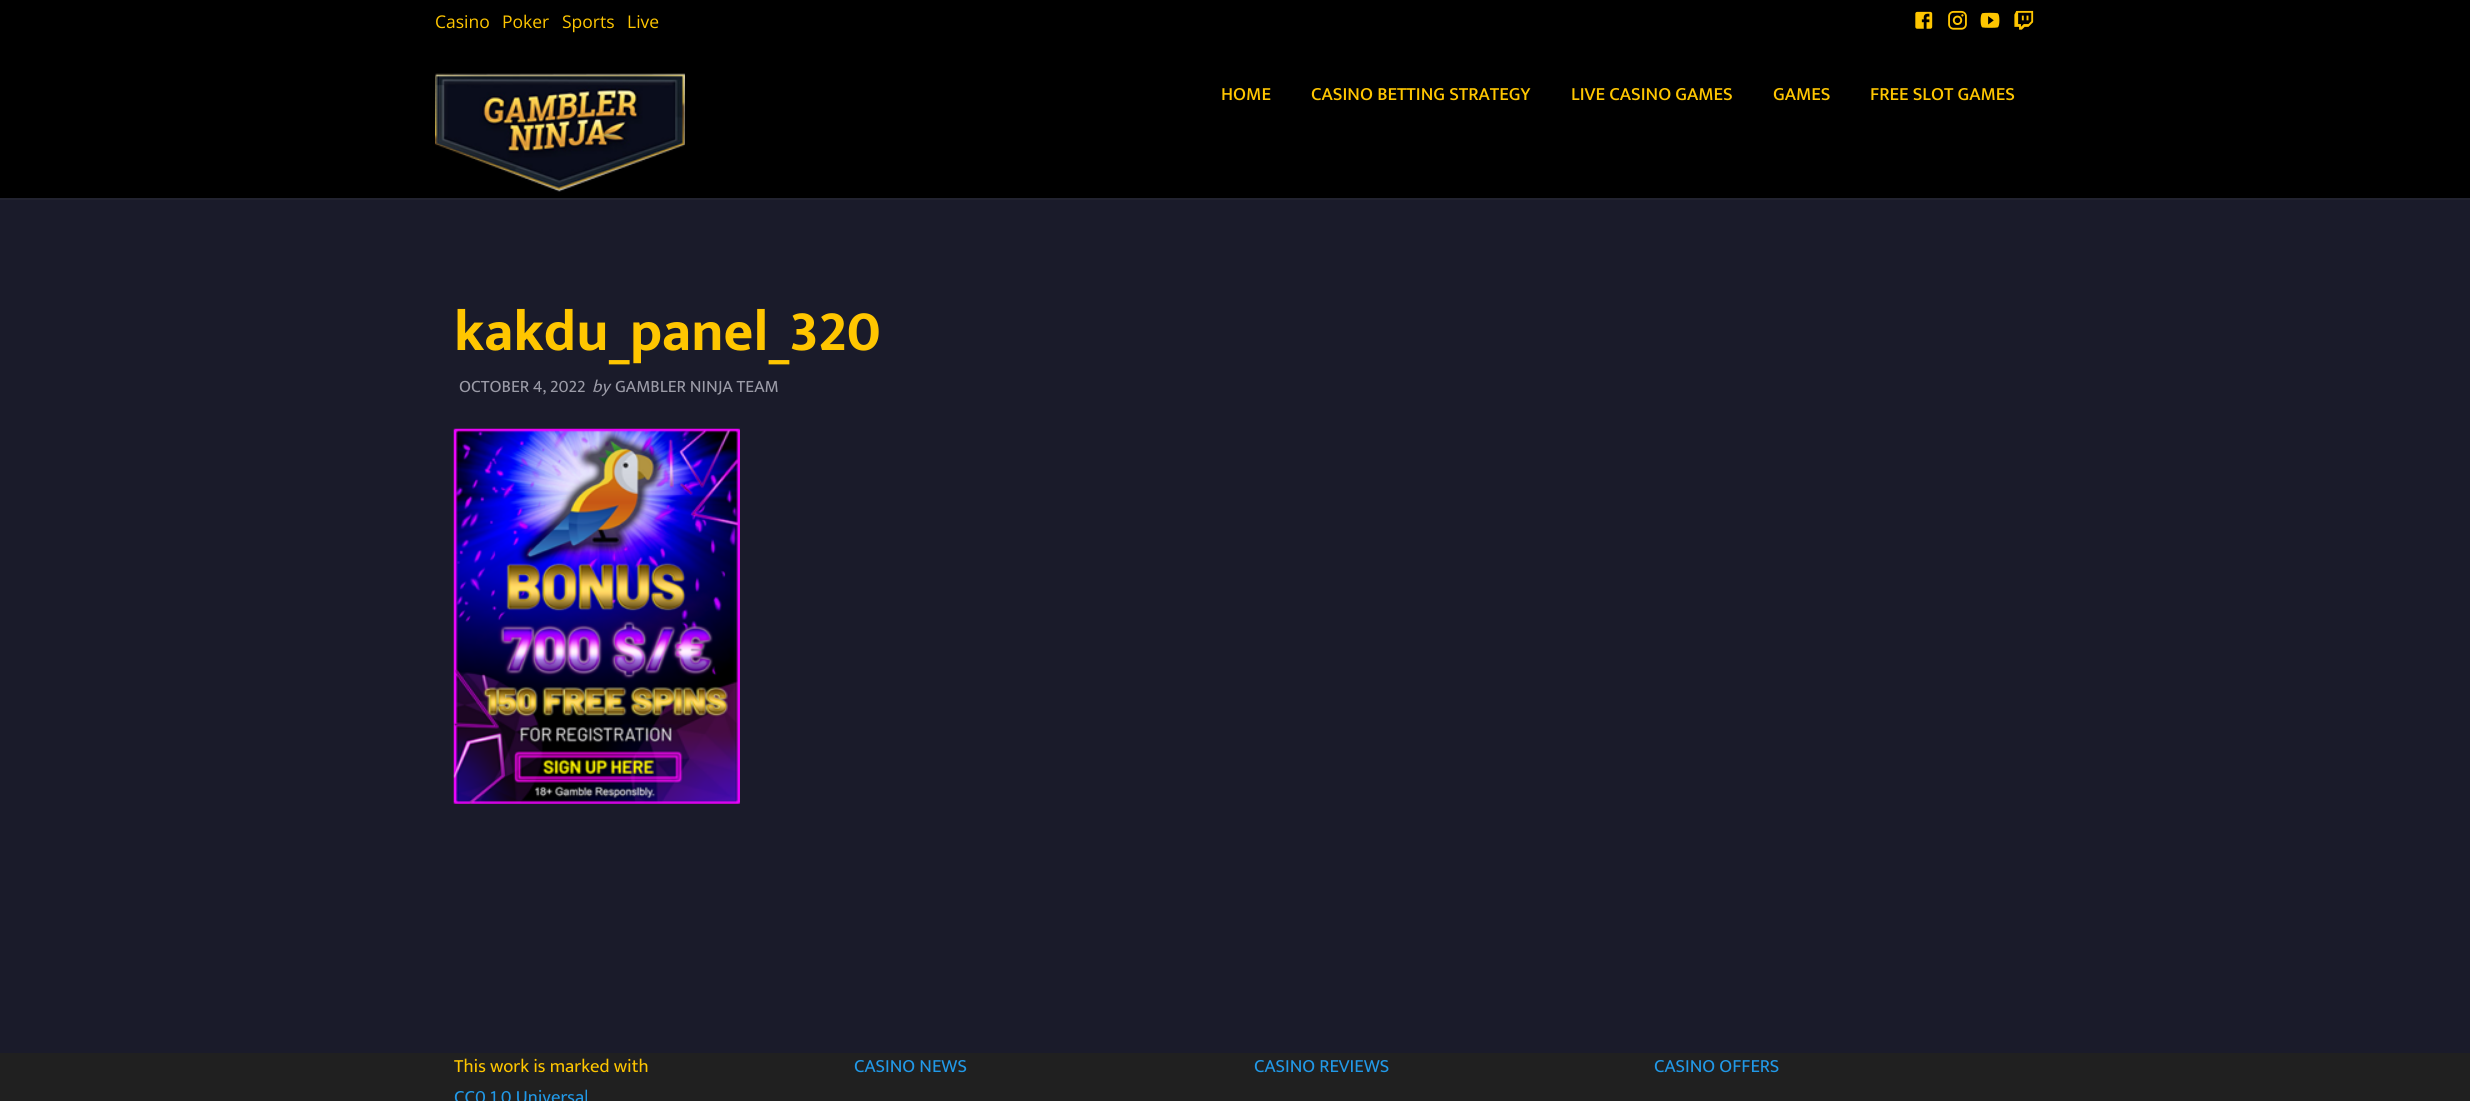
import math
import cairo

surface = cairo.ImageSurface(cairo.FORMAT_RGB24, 2470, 1101)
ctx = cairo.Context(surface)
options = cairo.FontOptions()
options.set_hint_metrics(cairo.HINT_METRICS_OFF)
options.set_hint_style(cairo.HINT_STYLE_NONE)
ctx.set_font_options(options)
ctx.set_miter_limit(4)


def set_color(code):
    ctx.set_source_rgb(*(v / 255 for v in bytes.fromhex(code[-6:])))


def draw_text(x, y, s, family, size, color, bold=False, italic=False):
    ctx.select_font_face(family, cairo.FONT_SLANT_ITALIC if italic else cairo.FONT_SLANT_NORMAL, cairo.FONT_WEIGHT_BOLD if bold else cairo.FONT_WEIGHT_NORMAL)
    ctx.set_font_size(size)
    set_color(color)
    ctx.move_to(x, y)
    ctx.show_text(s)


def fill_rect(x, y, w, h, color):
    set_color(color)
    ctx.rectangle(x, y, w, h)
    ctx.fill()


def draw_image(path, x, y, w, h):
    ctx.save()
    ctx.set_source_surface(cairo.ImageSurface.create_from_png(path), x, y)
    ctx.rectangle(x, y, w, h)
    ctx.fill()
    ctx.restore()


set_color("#1a1b2a")
ctx.paint()
fill_rect(0, 0, 2470, 198, "#000000")
draw_text(435, 28, "Casino", "Open Sans", 17.5, "#ffc600")
draw_text(502, 28, "Poker", "Open Sans", 17.5, "#ffc600")
draw_text(562, 28, "Sports", "Open Sans", 17.5, "#ffc600")
draw_text(627, 28, "Live", "Open Sans", 17.5, "#ffc600")
draw_image("assets/img1.png", 1915, 11, 18, 18)
draw_image("assets/img2.png", 1948, 10, 19, 20)
draw_image("assets/img3.png", 1980, 12, 20, 16)
draw_image("assets/img4.png", 2014, 10, 20, 20)
fill_rect(0, 198, 2470, 2, "#222330")
draw_image("assets/img5.png", 435, 73, 250, 119)
draw_text(1221, 100, "HOME", "Ek Mukta Medium", 18.75, "#ffc600")
draw_text(1311, 100, "CASINO BETTING STRATEGY", "Ek Mukta Medium", 18.75, "#ffc600")
draw_text(1571, 100, "LIVE CASINO GAMES", "Ek Mukta Medium", 18.75, "#ffc600")
draw_text(1773, 100, "GAMES", "Ek Mukta Medium", 18.75, "#ffc600")
draw_text(1870, 100, "FREE SLOT GAMES", "Ek Mukta Medium", 18.75, "#ffc600")
draw_text(454, 350, "kakdu_panel_320", "Ek Mukta", 57.5, "#ffc600", bold=True)
draw_text(459, 392, "OCTOBER 4, 2022", "Ek Mukta", 17.5, "#9b9ba7")
draw_text(592, 392, "by", "Ek Mukta", 17.5, "#9b9ba7", italic=True)
draw_text(615, 392, "GAMBLER NINJA TEAM", "Ek Mukta", 17.5, "#9b9ba7")
draw_image("assets/img6.png", 453, 428, 287, 376)
fill_rect(0, 1053, 2470, 48, "#202020")
draw_text(454, 1072, "This work is marked with", "Ek Mukta", 18.75, "#ffc600")
draw_text(454, 1103, "CC0 1.0 Universal", "Ek Mukta", 18.75, "#2199e8")
draw_text(854, 1072, "CASINO NEWS", "Ek Mukta", 18.75, "#2199e8")
draw_text(1254, 1072, "CASINO REVIEWS", "Ek Mukta", 18.75, "#2199e8")
draw_text(1654, 1072, "CASINO OFFERS", "Ek Mukta", 18.75, "#2199e8")
surface.write_to_png("output.png")
